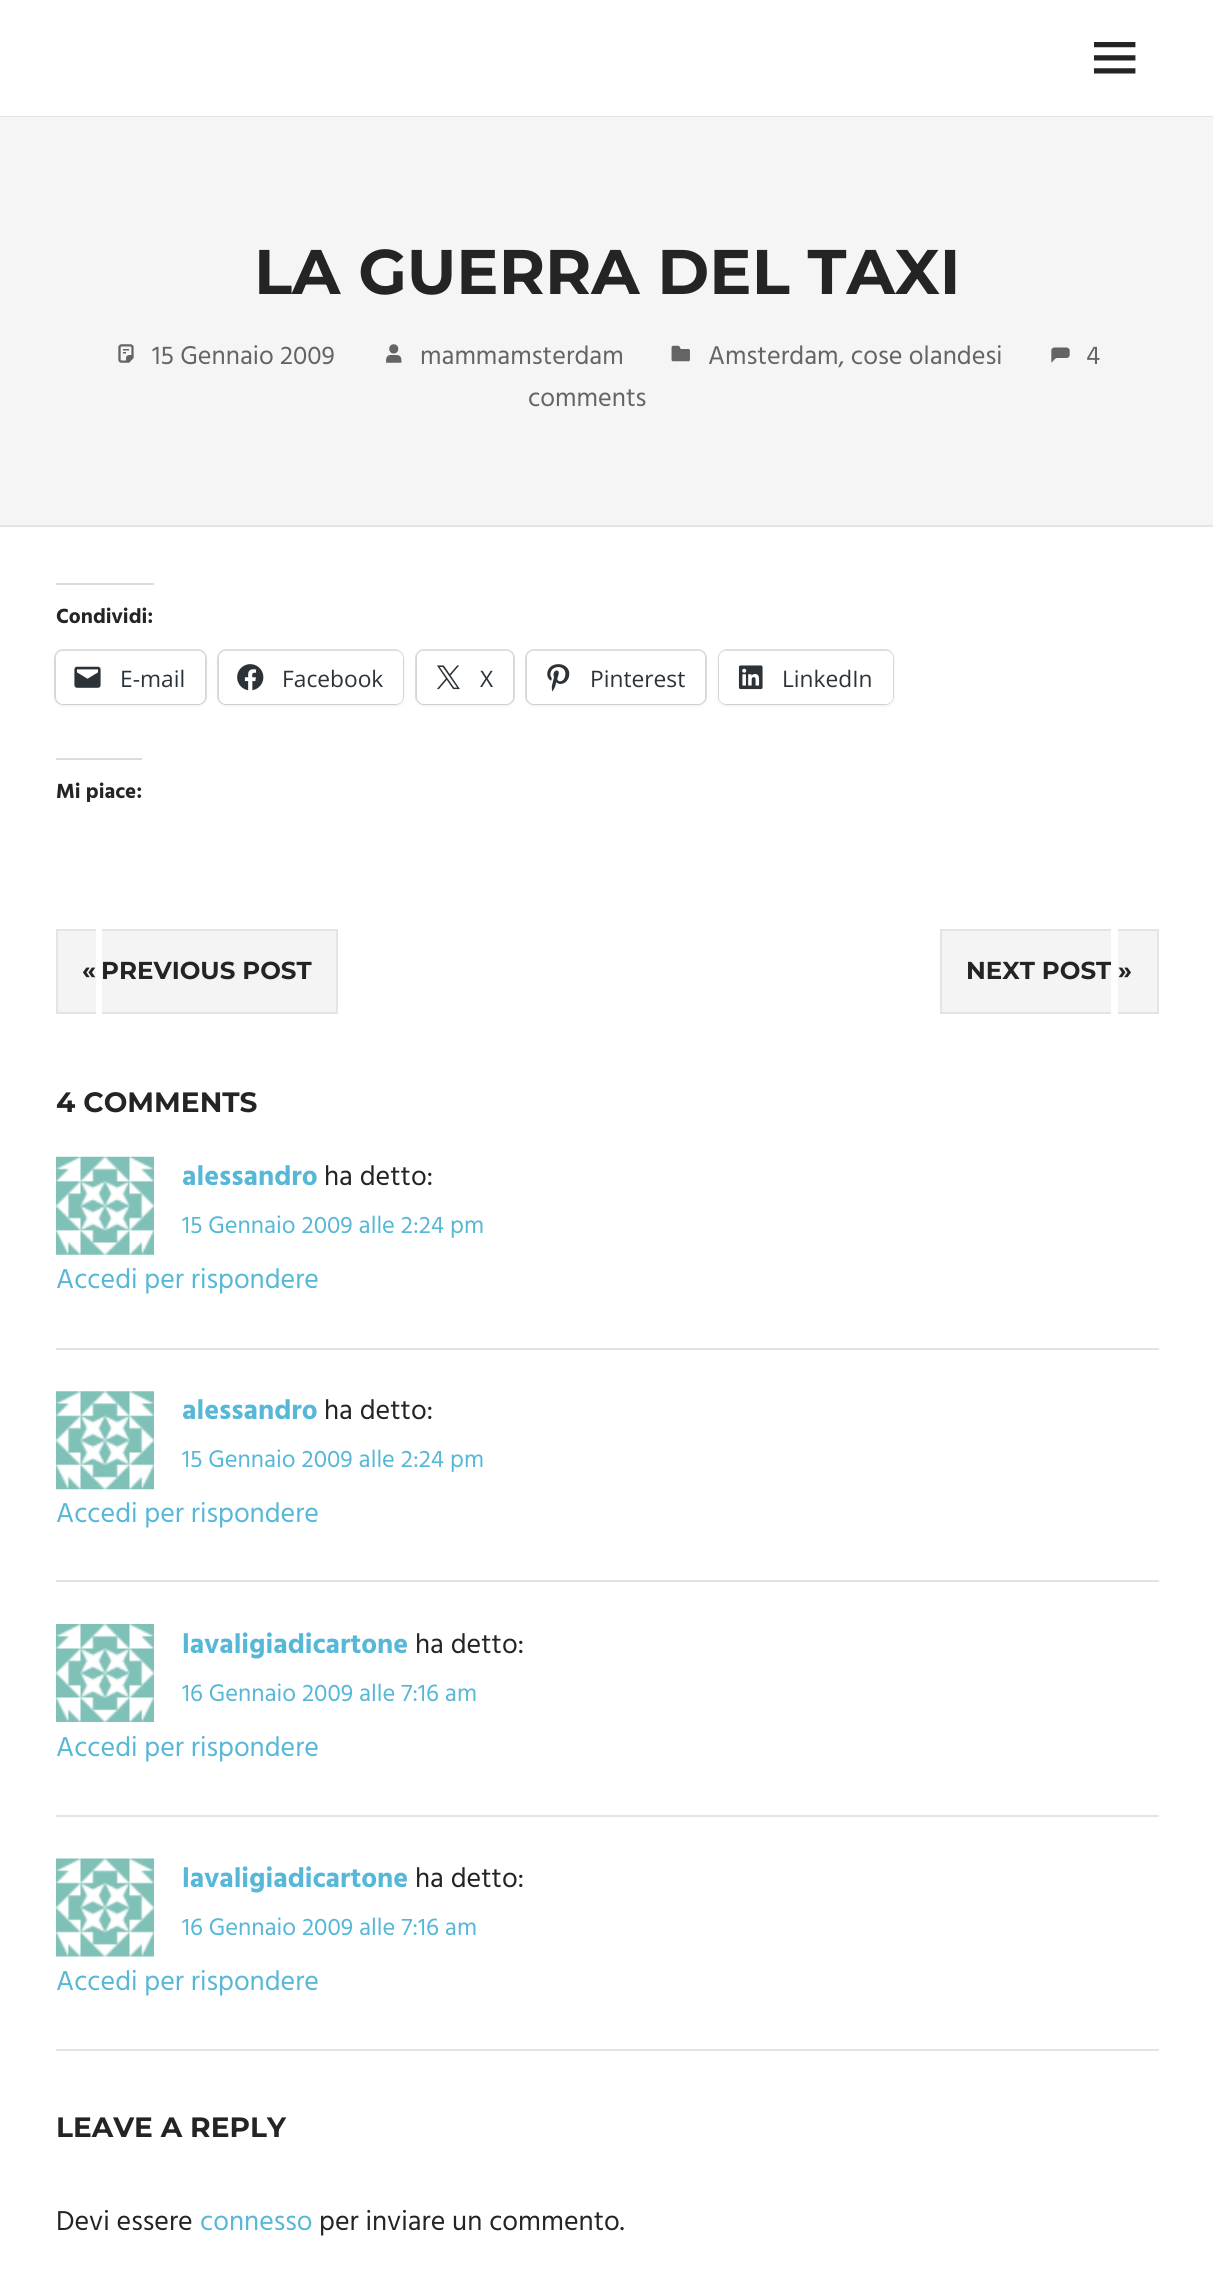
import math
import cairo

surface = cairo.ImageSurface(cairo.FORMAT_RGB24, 1213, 2273)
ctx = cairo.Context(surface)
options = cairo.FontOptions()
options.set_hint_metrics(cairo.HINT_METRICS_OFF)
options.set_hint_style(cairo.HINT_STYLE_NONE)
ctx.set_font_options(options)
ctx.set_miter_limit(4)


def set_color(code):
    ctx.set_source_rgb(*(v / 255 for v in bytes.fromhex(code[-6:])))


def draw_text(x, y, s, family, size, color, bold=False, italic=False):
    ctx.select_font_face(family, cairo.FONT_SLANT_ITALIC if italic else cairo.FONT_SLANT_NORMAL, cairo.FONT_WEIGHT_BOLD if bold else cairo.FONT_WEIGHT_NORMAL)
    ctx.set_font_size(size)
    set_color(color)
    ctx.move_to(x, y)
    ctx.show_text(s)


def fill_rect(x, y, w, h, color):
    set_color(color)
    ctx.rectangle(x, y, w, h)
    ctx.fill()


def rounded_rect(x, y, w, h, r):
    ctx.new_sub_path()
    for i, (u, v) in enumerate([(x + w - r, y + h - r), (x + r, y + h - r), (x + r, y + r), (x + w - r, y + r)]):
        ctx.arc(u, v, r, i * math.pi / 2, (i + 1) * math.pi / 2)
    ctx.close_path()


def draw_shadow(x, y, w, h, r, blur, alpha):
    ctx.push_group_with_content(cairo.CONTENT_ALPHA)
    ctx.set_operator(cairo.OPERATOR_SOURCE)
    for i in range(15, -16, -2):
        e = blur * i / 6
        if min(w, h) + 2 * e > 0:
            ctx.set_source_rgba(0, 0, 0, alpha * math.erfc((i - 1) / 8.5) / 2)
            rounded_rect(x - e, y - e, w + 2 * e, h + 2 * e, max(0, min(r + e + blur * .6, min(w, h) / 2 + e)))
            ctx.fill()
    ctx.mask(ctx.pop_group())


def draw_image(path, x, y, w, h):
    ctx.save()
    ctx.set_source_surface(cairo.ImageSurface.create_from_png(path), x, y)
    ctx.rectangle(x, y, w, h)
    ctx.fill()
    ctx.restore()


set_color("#ffffff")
ctx.paint()
fill_rect(0, 116, 1213, 1, "#e4e4e4")
draw_image("assets/img1.png", 1094, 42, 42, 32)
fill_rect(0, 117, 1213, 408, "#f5f5f5")
fill_rect(0, 525, 1213, 2, "#e5e5e5")
draw_text(254, 294, "LA GUERRA DEL TAXI", "Montserrat Thin", 63, "#242424")
draw_image("assets/img2.png", 118, 344, 16, 19)
draw_text(152, 364, "15 Gennaio 2009", "Hind", 26.25, "#646464")
draw_image("assets/img3.png", 386, 344, 16, 19)
draw_text(420, 364, "mammamsterdam", "Hind", 26.25, "#646464")
draw_image("assets/img4.png", 671, 345, 19, 17)
draw_text(708, 364, "Amsterdam, cose olandesi", "Hind", 26.25, "#646464")
draw_image("assets/img5.png", 1051, 347, 19, 16)
draw_text(1086, 364, "4", "Hind", 26.25, "#646464")
draw_text(528, 406, "comments", "Hind", 26.25, "#646464")
fill_rect(56, 583, 98, 2, "#dcdcde")
draw_text(56, 623, "Condividi:", "Hind", 21, "#242424", bold=True)
rounded_rect(55, 650, 151, 54, 8)
set_color("#e0e0e0")
ctx.stroke()
set_color("#000000")
draw_shadow(56, 653, 149, 52, 7, 2, 0.12)
set_color("#ffffff")
rounded_rect(56, 651, 149, 53, 7)
ctx.fill()
draw_image("assets/img6.png", 74, 666, 27, 22)
draw_text(120, 687, "E-mail", "Open Sans", 22.75, "#2c3338")
rounded_rect(218, 650, 185, 54, 8)
set_color("#e0e0e0")
ctx.stroke()
set_color("#000000")
draw_shadow(219, 653, 184, 52, 7, 2, 0.12)
set_color("#ffffff")
rounded_rect(219, 651, 184, 53, 7)
ctx.fill()
draw_image("assets/img7.png", 237, 664, 27, 27)
draw_text(282, 687, "Facebook", "Open Sans", 22.75, "#2c3338")
rounded_rect(416, 650, 98, 54, 8)
set_color("#e0e0e0")
ctx.stroke()
set_color("#000000")
draw_shadow(417, 653, 96, 52, 7, 2, 0.12)
set_color("#ffffff")
rounded_rect(417, 651, 96, 53, 7)
ctx.fill()
draw_image("assets/img8.png", 437, 665, 23, 25)
draw_text(480, 687, "X", "Open Sans", 22.75, "#2c3338")
rounded_rect(526, 650, 180, 54, 8)
set_color("#e0e0e0")
ctx.stroke()
set_color("#000000")
draw_shadow(527, 653, 178, 52, 7, 2, 0.12)
set_color("#ffffff")
rounded_rect(527, 651, 178, 53, 7)
ctx.fill()
draw_image("assets/img9.png", 547, 664, 23, 28)
draw_text(590, 687, "Pinterest", "Open Sans", 22.75, "#2c3338")
rounded_rect(719, 650, 174, 54, 8)
set_color("#e0e0e0")
ctx.stroke()
set_color("#000000")
draw_shadow(719, 653, 174, 52, 7, 2, 0.12)
set_color("#ffffff")
rounded_rect(719, 651, 174, 53, 7)
ctx.fill()
draw_image("assets/img10.png", 738, 665, 25, 25)
draw_text(782, 687, "LinkedIn", "Open Sans", 22.75, "#2c3338")
fill_rect(56, 758, 86, 2, "#dcdcde")
draw_text(56, 798, "Mi piace:", "Hind", 21, "#242424", bold=True)
fill_rect(58, 931, 38, 81, "#f4f4f4")
draw_text(82, 979, "«", "Montserrat Thin", 24.5, "#242424")
fill_rect(56, 929, 40, 2, "#e4e4e4")
fill_rect(56, 1012, 40, 2, "#e4e4e4")
fill_rect(56, 929, 2, 84, "#e4e4e4")
fill_rect(102, 931, 234, 81, "#f4f4f4")
draw_text(101, 979, "PREVIOUS POST", "Montserrat Thin", 24.5, "#242424")
fill_rect(102, 929, 236, 2, "#e4e4e4")
fill_rect(336, 929, 2, 84, "#e4e4e4")
fill_rect(102, 1012, 236, 2, "#e4e4e4")
fill_rect(942, 931, 169, 81, "#f4f4f4")
fill_rect(1118, 931, 39, 81, "#f4f4f4")
draw_text(966, 979, "NEXT POST »", "Montserrat Thin", 24.5, "#242424")
fill_rect(940, 929, 171, 2, "#e4e4e4")
fill_rect(940, 1012, 171, 2, "#e4e4e4")
fill_rect(940, 929, 2, 84, "#e4e4e4")
fill_rect(1118, 929, 41, 2, "#e4e4e4")
fill_rect(1157, 929, 2, 84, "#e4e4e4")
fill_rect(1118, 1012, 41, 2, "#e4e4e4")
draw_text(56, 1112, "4 COMMENTS", "Montserrat Thin", 28, "#242424")
fill_rect(56, 1348, 1103, 2, "#e4e4e4")
draw_image("assets/img11.png", 56, 1156, 98, 99)
draw_text(182, 1185, "alessandro", "Hind", 28, "#57b7d7", bold=True)
draw_text(324, 1185, "ha detto:", "Hind", 28, "#242424")
draw_text(182, 1233, "15 Gennaio 2009 alle 2:24 pm", "Hind", 24.5, "#57b7d7")
draw_text(56, 1288, "Accedi per rispondere", "Hind", 28, "#57b7d7")
fill_rect(56, 1580, 1103, 2, "#e4e4e4")
draw_image("assets/img12.png", 56, 1391, 98, 99)
draw_text(182, 1419, "alessandro", "Hind", 28, "#57b7d7", bold=True)
draw_text(324, 1419, "ha detto:", "Hind", 28, "#242424")
draw_text(182, 1467, "15 Gennaio 2009 alle 2:24 pm", "Hind", 24.5, "#57b7d7")
draw_text(56, 1522, "Accedi per rispondere", "Hind", 28, "#57b7d7")
fill_rect(56, 1815, 1103, 2, "#e4e4e4")
draw_image("assets/img13.png", 56, 1624, 98, 98)
draw_text(182, 1653, "lavaligiadicartone", "Hind", 28, "#57b7d7", bold=True)
draw_text(415, 1653, "ha detto:", "Hind", 28, "#242424")
draw_text(182, 1701, "16 Gennaio 2009 alle 7:16 am", "Hind", 24.5, "#57b7d7")
draw_text(56, 1756, "Accedi per rispondere", "Hind", 28, "#57b7d7")
fill_rect(56, 2049, 1103, 2, "#e4e4e4")
draw_image("assets/img14.png", 56, 1858, 98, 99)
draw_text(182, 1887, "lavaligiadicartone", "Hind", 28, "#57b7d7", bold=True)
draw_text(415, 1887, "ha detto:", "Hind", 28, "#242424")
draw_text(182, 1935, "16 Gennaio 2009 alle 7:16 am", "Hind", 24.5, "#57b7d7")
draw_text(56, 1990, "Accedi per rispondere", "Hind", 28, "#57b7d7")
draw_text(56, 2137, "LEAVE A REPLY", "Montserrat Thin", 28, "#242424")
draw_text(56, 2230, "Devi essere", "Hind", 28, "#242424")
draw_text(200, 2230, "connesso", "Hind", 28, "#57b7d7")
draw_text(319, 2230, "per inviare un commento.", "Hind", 28, "#242424")
surface.write_to_png("output.png")
